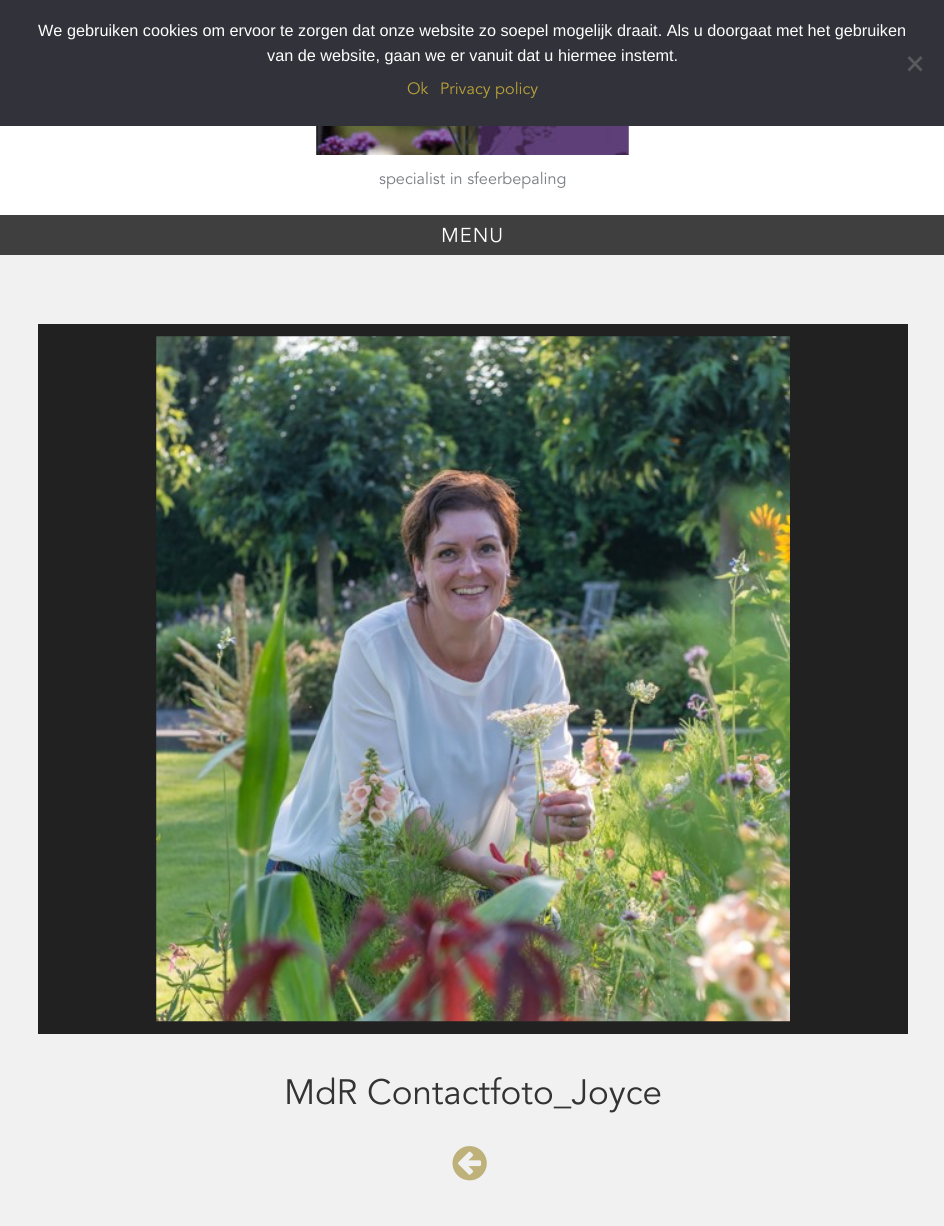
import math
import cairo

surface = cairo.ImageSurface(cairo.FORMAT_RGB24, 944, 1226)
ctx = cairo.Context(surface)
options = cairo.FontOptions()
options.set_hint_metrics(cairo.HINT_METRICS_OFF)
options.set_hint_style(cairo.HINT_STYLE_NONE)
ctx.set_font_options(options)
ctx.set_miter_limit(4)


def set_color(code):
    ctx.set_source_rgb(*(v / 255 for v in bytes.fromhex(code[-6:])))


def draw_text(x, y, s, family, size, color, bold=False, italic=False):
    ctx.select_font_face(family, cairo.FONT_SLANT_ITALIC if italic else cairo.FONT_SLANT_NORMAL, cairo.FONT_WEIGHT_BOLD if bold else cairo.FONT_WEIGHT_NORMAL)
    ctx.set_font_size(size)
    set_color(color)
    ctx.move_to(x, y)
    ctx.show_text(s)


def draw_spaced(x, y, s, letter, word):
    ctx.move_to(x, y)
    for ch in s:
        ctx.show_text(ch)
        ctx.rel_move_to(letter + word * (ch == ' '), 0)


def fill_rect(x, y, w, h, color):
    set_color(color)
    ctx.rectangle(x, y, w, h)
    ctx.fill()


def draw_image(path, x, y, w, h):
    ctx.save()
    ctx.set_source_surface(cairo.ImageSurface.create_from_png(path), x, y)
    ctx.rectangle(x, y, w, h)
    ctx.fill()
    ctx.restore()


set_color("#f1f1f1")
ctx.paint()
fill_rect(0, 0, 944, 126, "#32323a")
draw_text(38, 36, "We gebruiken cookies om ervoor te zorgen dat onze website zo soepel mogelijk draait. Als u doorgaat met het gebruiken", "Liberation Sans", 16.25, "#ffffff")
draw_text(267, 61, "van de website, gaan we er vanuit dat u hiermee instemt.", "Liberation Sans", 16.25, "#ffffff")
set_color("#59595d")
ctx.new_path()
ctx.move_to(920.5, 56)
ctx.line_to(922.5, 58)
ctx.line_to(909.5, 71.5)
ctx.line_to(907.5, 69.5)
ctx.close_path()
ctx.fill()
ctx.new_path()
ctx.move_to(907.5, 58)
ctx.line_to(909.5, 56)
ctx.line_to(922.5, 69.5)
ctx.line_to(920.5, 71.5)
ctx.close_path()
ctx.fill()
draw_text(407, 94, "Ok", "Avenir", 16.25, "#b8a138")
draw_text(440, 94, "Privacy policy", "Avenir", 16.25, "#b8a138")
fill_rect(0, 126, 944, 89, "#ffffff")
draw_image("assets/img1.png", 316, 126, 313, 29)
draw_text(379, 184, "specialist in sfeerbepaling", "Avenir", 16.25, "#797d82")
fill_rect(0, 215, 944, 40, "#3f3f3f")
ctx.set_font_size(20)
set_color("#ffffff")
draw_spaced(441, 242, "MENU", 1, 0)
fill_rect(38, 324, 870, 710, "#212121")
draw_image("assets/img2.png", 156, 336, 634, 686)
draw_text(284, 1104, "MdR Contactfoto_Joyce", "Avenir", 35, "#333333")
draw_image("assets/img3.png", 452, 1146, 35, 35)
surface.write_to_png("output.png")
